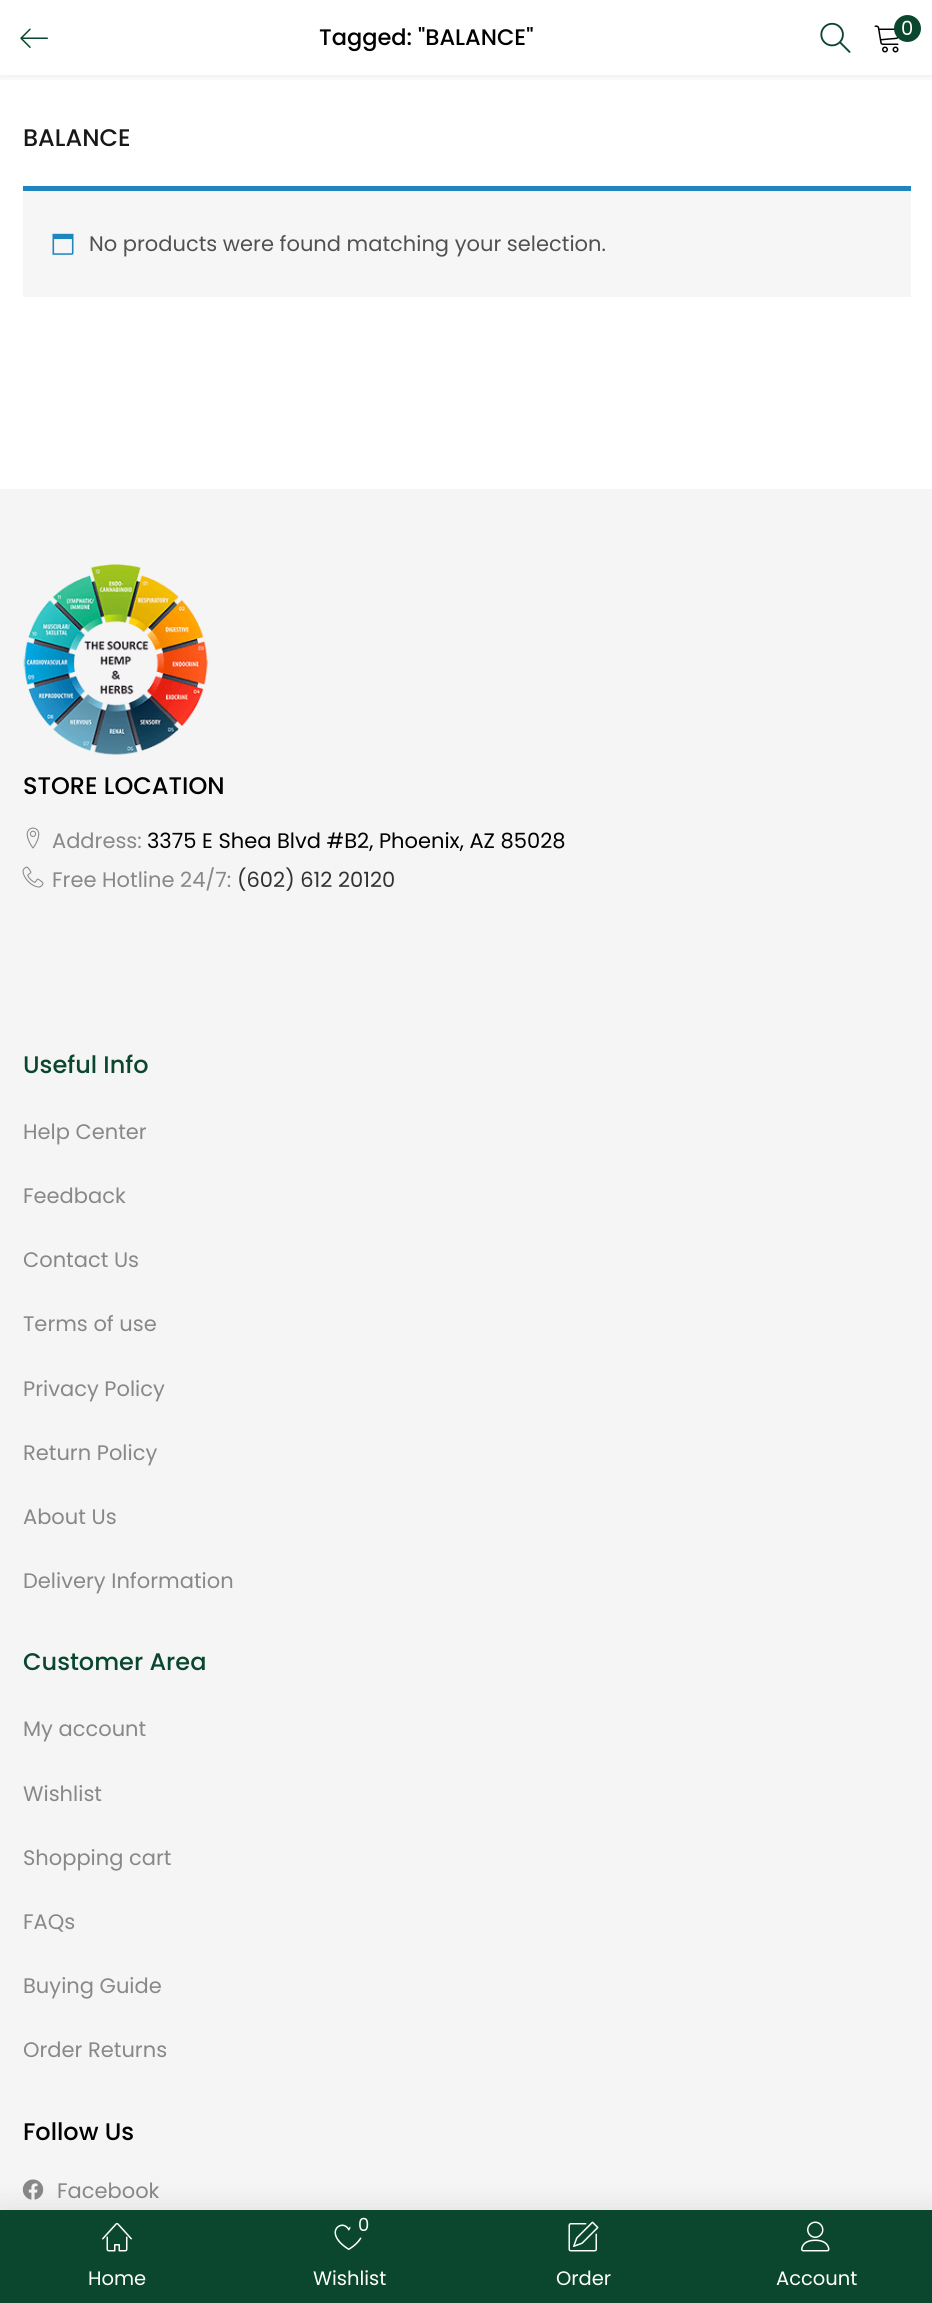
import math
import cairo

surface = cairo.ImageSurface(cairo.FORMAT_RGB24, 932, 2303)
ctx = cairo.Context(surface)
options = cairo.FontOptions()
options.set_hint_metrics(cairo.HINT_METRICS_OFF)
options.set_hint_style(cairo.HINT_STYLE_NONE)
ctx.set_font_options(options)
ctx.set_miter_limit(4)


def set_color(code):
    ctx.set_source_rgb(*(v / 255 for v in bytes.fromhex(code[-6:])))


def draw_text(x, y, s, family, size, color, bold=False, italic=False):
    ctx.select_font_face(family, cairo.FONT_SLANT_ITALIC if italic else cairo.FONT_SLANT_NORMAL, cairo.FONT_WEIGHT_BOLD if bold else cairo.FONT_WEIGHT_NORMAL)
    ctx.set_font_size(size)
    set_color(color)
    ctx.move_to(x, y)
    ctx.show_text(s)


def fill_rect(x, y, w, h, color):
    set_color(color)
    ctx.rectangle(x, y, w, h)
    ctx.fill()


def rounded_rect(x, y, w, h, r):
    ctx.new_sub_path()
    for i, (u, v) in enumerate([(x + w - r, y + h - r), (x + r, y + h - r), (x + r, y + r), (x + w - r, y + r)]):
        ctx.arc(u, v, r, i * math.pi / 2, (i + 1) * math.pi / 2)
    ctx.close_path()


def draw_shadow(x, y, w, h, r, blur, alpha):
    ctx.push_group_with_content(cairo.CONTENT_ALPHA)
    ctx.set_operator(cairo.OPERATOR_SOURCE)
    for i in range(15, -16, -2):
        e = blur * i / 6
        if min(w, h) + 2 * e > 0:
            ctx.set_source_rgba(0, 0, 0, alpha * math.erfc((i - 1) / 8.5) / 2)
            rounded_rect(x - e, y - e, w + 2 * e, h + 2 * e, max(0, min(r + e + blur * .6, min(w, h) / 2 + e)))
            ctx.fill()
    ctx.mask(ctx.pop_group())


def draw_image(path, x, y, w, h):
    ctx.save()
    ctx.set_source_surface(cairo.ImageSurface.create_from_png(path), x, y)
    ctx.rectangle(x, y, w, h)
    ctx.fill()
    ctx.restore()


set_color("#ffffff")
ctx.paint()
ctx.save()
ctx.rectangle(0, 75, 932, 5)
ctx.clip()
set_color("#000000")
draw_shadow(0, 0, 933, 75, 0, 6, 0.1)
ctx.restore()
draw_image("assets/img1.png", 20, 28, 28, 20)
draw_text(319, 45, "Tagged: \"BALANCE\"", "Poppins Medium", 22.5, "#000000")
draw_image("assets/img2.png", 820, 22, 31, 31)
draw_image("assets/img3.png", 874, 25, 25, 28)
set_color("#0a472e")
ctx.arc(907.5, 28.5, 13.5, 0, 2 * math.pi)
ctx.fill()
draw_text(901, 35, "0", "Poppins", 19.5, "#ffffff")
draw_text(23, 146, "BALANCE", "Poppins Medium", 24, "#17181a")
fill_rect(23, 191, 888, 106, "#f7f6f7")
fill_rect(23, 186, 888, 5, "#1e85be")
draw_image("assets/img4.png", 52, 233, 22, 22)
draw_text(89, 251, "No products were found matching your selection.", "Poppins", 21, "#515151")
fill_rect(0, 489, 932, 1721, "#f5f5f5")
draw_image("assets/img5.png", 23, 564, 186, 191)
draw_text(23, 794, "STORE LOCATION", "Poppins Medium", 24, "#000000")
draw_image("assets/img6.png", 26, 827, 14, 22)
draw_text(52, 848, "Address:", "Poppins", 21, "#888888")
draw_text(147, 848, "3375 E Shea Blvd #B2, Phoenix, AZ 85028", "Poppins", 21, "#000000")
draw_image("assets/img7.png", 22, 866, 22, 22)
draw_text(52, 887, "Free Hotline 24/7:", "Poppins", 21, "#888888")
draw_text(237, 887, "(602) 612 20120", "Poppins", 21, "#323232")
draw_text(23, 1073, "Useful Info", "Poppins Medium", 24, "#0a472e")
draw_text(23, 1139, "Help Center", "Poppins", 21, "#888888")
draw_text(23, 1203, "Feedback", "Poppins", 21, "#888888")
draw_text(23, 1267, "Contact Us", "Poppins", 21, "#888888")
draw_text(23, 1331, "Terms of use", "Poppins", 21, "#888888")
draw_text(23, 1396, "Privacy Policy", "Poppins", 21, "#888888")
draw_text(23, 1460, "Return Policy", "Poppins", 21, "#888888")
draw_text(23, 1524, "About Us", "Poppins", 21, "#888888")
draw_text(23, 1588, "Delivery Information", "Poppins", 21, "#888888")
draw_text(23, 1670, "Customer Area", "Poppins Medium", 24, "#0a472e")
draw_text(23, 1736, "My account", "Poppins", 21, "#888888")
draw_text(23, 1801, "Wishlist", "Poppins", 21, "#888888")
draw_text(23, 1865, "Shopping cart", "Poppins", 21, "#888888")
draw_text(23, 1929, "FAQs", "Poppins", 21, "#888888")
draw_text(23, 1993, "Buying Guide", "Poppins", 21, "#888888")
draw_text(23, 2057, "Order Returns", "Poppins", 21, "#888888")
draw_text(23, 2140, "Follow Us", "Poppins Medium", 24, "#000000")
draw_image("assets/img8.png", 22, 2179, 22, 21)
draw_text(57, 2198, "Facebook", "Poppins", 21, "#888888")
set_color("#000000")
draw_shadow(0, 2210, 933, 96, 0, 15, 0.1)
fill_rect(0, 2210, 932, 93, "#0a472e")
draw_image("assets/img9.png", 102, 2222, 30, 30)
draw_text(88, 2285, "Home", "Poppins", 19.5, "#ffffff")
draw_image("assets/img10.png", 334, 2224, 28, 26)
set_color("#0a472e")
ctx.arc(363.5, 2224.5, 13.5, 0, 2 * math.pi)
ctx.fill()
draw_text(358, 2231, "0", "Poppins", 18, "#ffffff")
draw_text(313, 2285, "Wishlist", "Poppins", 19.5, "#ffffff")
draw_image("assets/img11.png", 568, 2221, 31, 31)
draw_text(556, 2285, "Order", "Poppins", 19.5, "#ffffff")
draw_image("assets/img12.png", 801, 2221, 29, 31)
draw_text(776, 2285, "Account", "Poppins", 19.5, "#ffffff")
surface.write_to_png("output.png")
